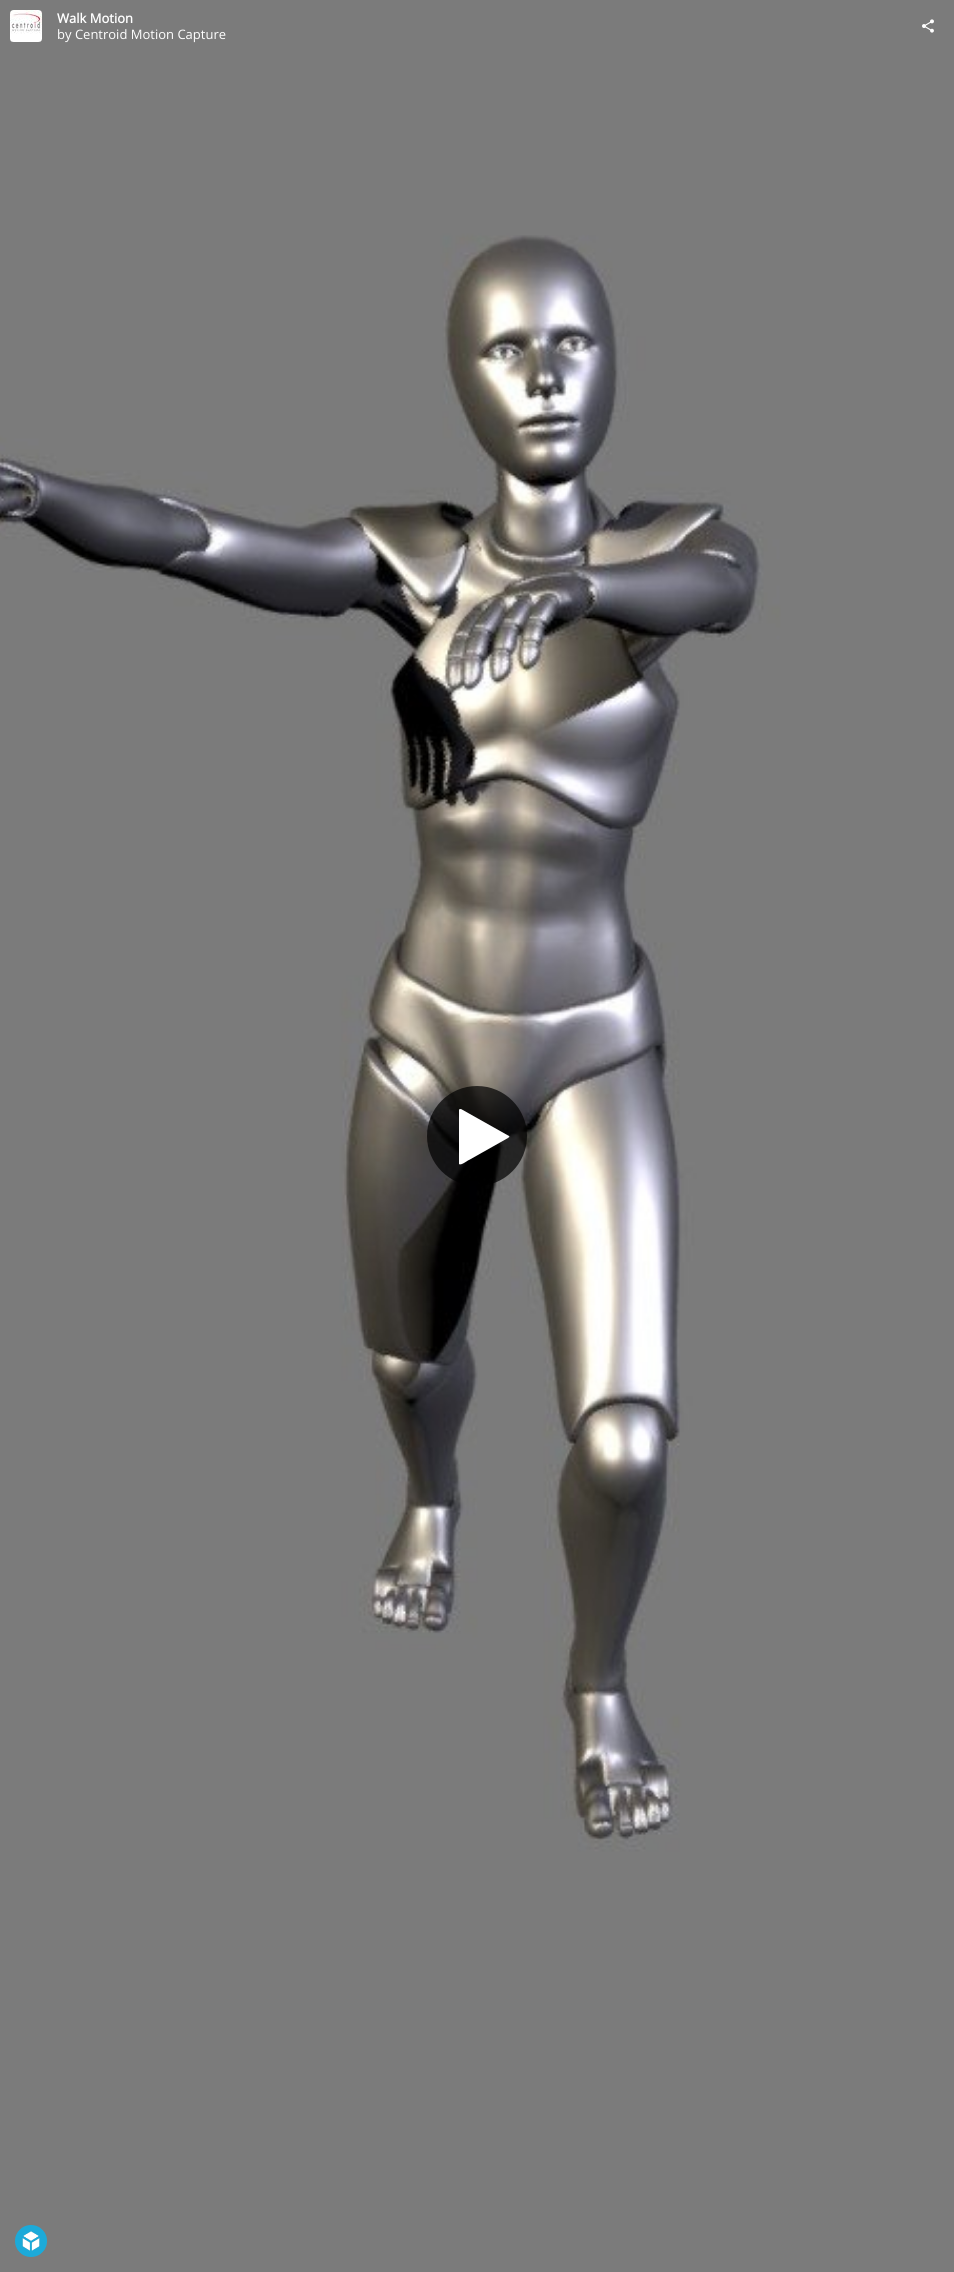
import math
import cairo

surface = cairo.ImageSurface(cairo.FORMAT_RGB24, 954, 2272)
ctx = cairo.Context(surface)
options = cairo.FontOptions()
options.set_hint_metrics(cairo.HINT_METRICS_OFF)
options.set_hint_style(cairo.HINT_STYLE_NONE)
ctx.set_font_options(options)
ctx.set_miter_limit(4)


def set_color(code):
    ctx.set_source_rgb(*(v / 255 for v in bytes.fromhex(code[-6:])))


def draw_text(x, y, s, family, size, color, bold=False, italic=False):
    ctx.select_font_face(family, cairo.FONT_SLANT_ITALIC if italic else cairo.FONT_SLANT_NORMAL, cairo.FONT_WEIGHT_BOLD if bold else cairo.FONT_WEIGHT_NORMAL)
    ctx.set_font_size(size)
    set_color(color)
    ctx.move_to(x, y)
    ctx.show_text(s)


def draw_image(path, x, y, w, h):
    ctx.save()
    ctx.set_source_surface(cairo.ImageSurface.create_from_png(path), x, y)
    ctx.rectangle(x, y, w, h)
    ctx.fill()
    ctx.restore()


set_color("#ffffff")
ctx.paint()
draw_image("assets/img1.png", 0, 0, 954, 2272)
ctx.set_source_rgba(0, 0, 0, 0.7)
ctx.arc(477, 1136, 50, 0, 2 * math.pi)
ctx.fill()
set_color("#ffffff")
ctx.new_path()
ctx.move_to(508, 1138)
ctx.line_to(469, 1160)
ctx.curve_to(468, 1160, 461, 1166, 459, 1164)
ctx.line_to(459, 1110)
ctx.curve_to(459, 1109, 460, 1109, 461, 1109)
ctx.line_to(509, 1136)
ctx.curve_to(510, 1137, 509, 1137, 508, 1138)
ctx.close_path()
ctx.fill()
draw_image("assets/img2.png", 15, 2225, 32, 32)
draw_image("assets/img3.png", 10, 10, 32, 32)
draw_text(57, 23, "Walk Motion", "Open Sans", 13, "#ffffff", bold=True)
draw_text(57, 39, "by Centroid Motion Capture", "Open Sans", 13, "#ffffff")
draw_image("assets/img4.png", 922, 19, 12, 14)
surface.write_to_png("output.png")
